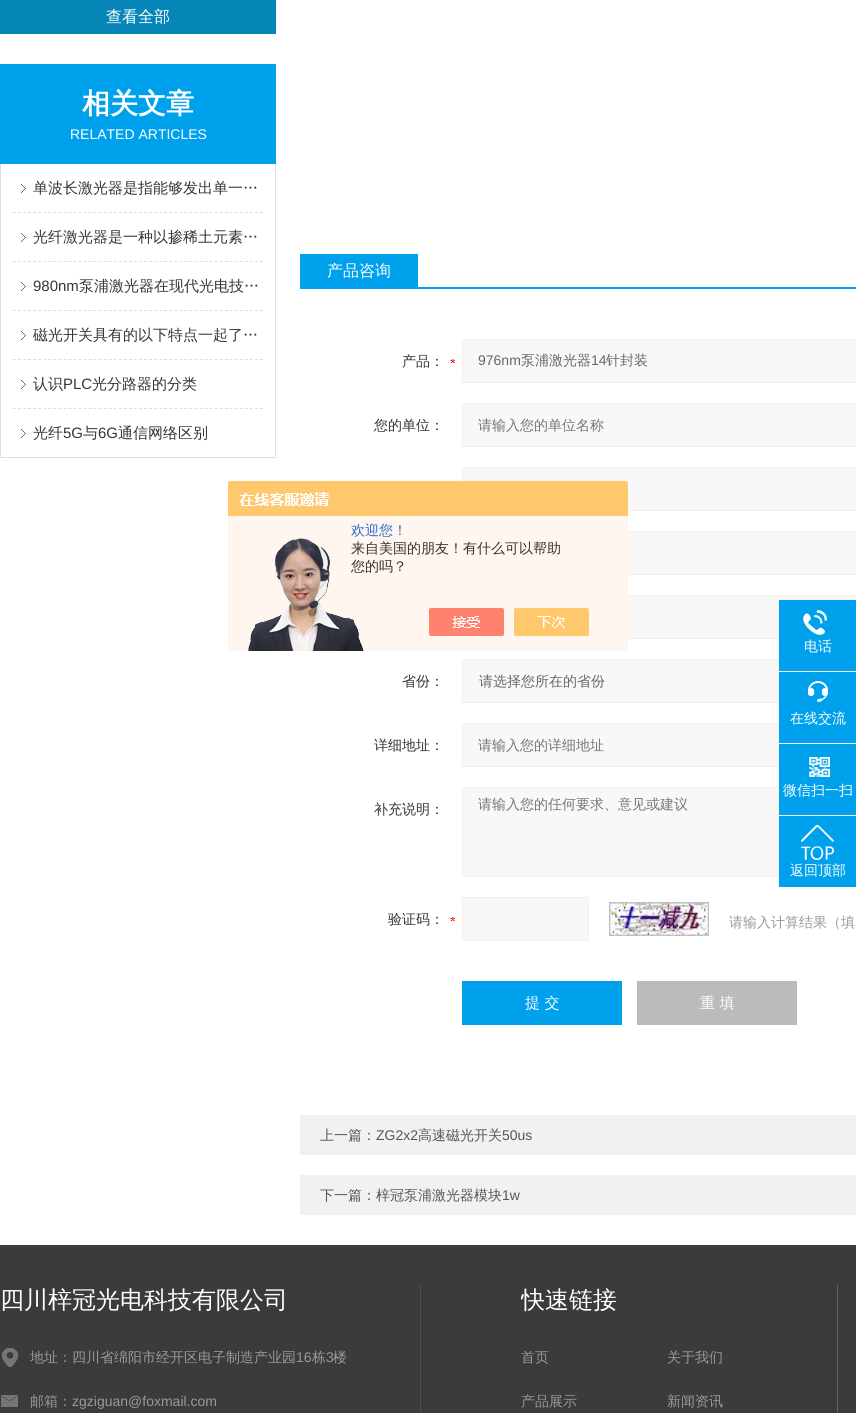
import math
import cairo

surface = cairo.ImageSurface(cairo.FORMAT_RGB24, 856, 1413)
ctx = cairo.Context(surface)
options = cairo.FontOptions()
options.set_hint_metrics(cairo.HINT_METRICS_OFF)
options.set_hint_style(cairo.HINT_STYLE_NONE)
ctx.set_font_options(options)
ctx.set_miter_limit(4)


def set_color(code):
    ctx.set_source_rgb(*(v / 255 for v in bytes.fromhex(code[-6:])))


def draw_text(x, y, s, family, size, color, bold=False, italic=False):
    ctx.select_font_face(family, cairo.FONT_SLANT_ITALIC if italic else cairo.FONT_SLANT_NORMAL, cairo.FONT_WEIGHT_BOLD if bold else cairo.FONT_WEIGHT_NORMAL)
    ctx.set_font_size(size)
    set_color(color)
    ctx.move_to(x, y)
    ctx.show_text(s)


def fill_rect(x, y, w, h, color):
    set_color(color)
    ctx.rectangle(x, y, w, h)
    ctx.fill()


def draw_image(path, x, y, w, h):
    ctx.save()
    ctx.set_source_surface(cairo.ImageSurface.create_from_png(path), x, y)
    ctx.rectangle(x, y, w, h)
    ctx.fill()
    ctx.restore()


set_color("#ffffff")
ctx.paint()
fill_rect(0, 0, 276, 34, "#0685b7")
draw_text(106, 22, "查看全部", "WenQuanYi Zen Hei Medium", 16, "#ffffff")
fill_rect(0, 64, 276, 100, "#00a1ec")
draw_text(82, 113, "相关文章", "WenQuanYi Zen Hei", 28, "#ffffff", bold=True)
draw_text(70, 139, "RELATED ARTICLES", "Liberation Sans", 14, "#ffffff")
fill_rect(275, 164, 1, 294, "#dfdfdf")
fill_rect(0, 457, 276, 1, "#dfdfdf")
fill_rect(0, 164, 1, 294, "#dfdfdf")
ctx.new_path()
ctx.move_to(13, 212.5)
ctx.line_to(263, 212.5)
ctx.set_line_width(1)
ctx.set_dash([3, 2.04])
ctx.stroke()
draw_image("assets/img1.png", 21, 184, 5, 9)
draw_text(33, 193, "单波长激光器是指能够发出单一…", "WenQuanYi Zen Hei Medium", 15, "#32353a")
ctx.new_path()
ctx.move_to(13, 261.5)
ctx.line_to(263, 261.5)
set_color("#dfdfdf")
ctx.stroke()
draw_image("assets/img1.png", 21, 233, 5, 9)
draw_text(33, 242, "光纤激光器是一种以掺稀土元素…", "WenQuanYi Zen Hei Medium", 15, "#32353a")
ctx.new_path()
ctx.move_to(13, 310.5)
ctx.line_to(263, 310.5)
set_color("#dfdfdf")
ctx.stroke()
draw_image("assets/img1.png", 21, 282, 5, 9)
draw_text(33, 291, "980nm", "Liberation Sans", 15, "#32353a")
draw_text(79, 291, "泵浦激光器在现代光电技…", "WenQuanYi Zen Hei Medium", 15, "#32353a")
ctx.new_path()
ctx.move_to(13, 359.5)
ctx.line_to(263, 359.5)
set_color("#dfdfdf")
ctx.stroke()
draw_image("assets/img1.png", 21, 331, 5, 9)
draw_text(33, 340, "磁光开关具有的以下特点一起了…", "WenQuanYi Zen Hei Medium", 15, "#32353a")
ctx.new_path()
ctx.move_to(13, 408.5)
ctx.line_to(263, 408.5)
set_color("#dfdfdf")
ctx.stroke()
draw_image("assets/img1.png", 21, 380, 5, 9)
draw_text(33, 389, "认识", "WenQuanYi Zen Hei Medium", 15, "#32353a")
draw_text(63, 389, "PLC", "Liberation Sans", 15, "#32353a")
draw_text(92, 389, "光分路器的分类", "WenQuanYi Zen Hei Medium", 15, "#32353a")
draw_image("assets/img1.png", 21, 429, 5, 9)
draw_text(33, 438, "光纤", "WenQuanYi Zen Hei Medium", 15, "#32353a")
draw_text(63, 438, "5G", "Liberation Sans", 15, "#32353a")
draw_text(83, 438, "与", "WenQuanYi Zen Hei Medium", 15, "#32353a")
draw_text(98, 438, "6G", "Liberation Sans", 15, "#32353a")
draw_text(118, 438, "通信网络区别", "WenQuanYi Zen Hei Medium", 15, "#32353a")
fill_rect(300, 287, 556, 2, "#00a1ec")
fill_rect(300, 254, 118, 33, "#00a1ec")
draw_text(327, 276, "产品咨询", "WenQuanYi Zen Hei Medium", 16, "#ffffff")
draw_image("assets/img2.png", 450, 359, 5, 4)
draw_text(402, 366, "产品：", "WenQuanYi Zen Hei Medium", 14, "#333333")
set_color("#f8f8f8")
ctx.rectangle(462.5, 339.5, 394, 43)
ctx.fill_preserve()
set_color("#f1f1f1")
ctx.set_dash([])
ctx.stroke()
draw_text(478, 365, "976nm", "Liberation Sans", 14, "#666666")
draw_text(521, 365, "泵浦激光器", "WenQuanYi Zen Hei Medium", 14, "#666666")
draw_text(591, 365, "14", "Liberation Sans", 14, "#666666")
draw_text(606, 365, "针封装", "WenQuanYi Zen Hei Medium", 14, "#666666")
draw_text(374, 430, "您的单位：", "WenQuanYi Zen Hei Medium", 14, "#333333")
set_color("#f8f8f8")
ctx.rectangle(462.5, 403.5, 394, 43)
ctx.fill_preserve()
set_color("#f1f1f1")
ctx.stroke()
draw_text(478, 430, "请输入您的单位名称", "WenQuanYi Zen Hei Medium", 14, "#757575")
set_color("#f8f8f8")
ctx.rectangle(462.5, 467.5, 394, 43)
ctx.fill_preserve()
set_color("#f1f1f1")
ctx.stroke()
fill_rect(628, 532, 228, 42, "#f8f8f8")
ctx.rectangle(462.5, 531.5, 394, 43)
set_color("#f1f1f1")
ctx.stroke()
fill_rect(628, 596, 228, 42, "#f8f8f8")
ctx.rectangle(462.5, 595.5, 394, 43)
set_color("#f1f1f1")
ctx.stroke()
draw_text(402, 686, "省份：", "WenQuanYi Zen Hei Medium", 14, "#333333")
set_color("#f8f8f8")
ctx.rectangle(462.5, 659.5, 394, 43)
ctx.fill_preserve()
set_color("#f1f1f1")
ctx.stroke()
draw_text(479, 686, "请选择您所在的省份", "WenQuanYi Zen Hei Medium", 14, "#666666")
draw_text(374, 750, "详细地址：", "WenQuanYi Zen Hei Medium", 14, "#333333")
set_color("#f8f8f8")
ctx.rectangle(462.5, 723.5, 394, 43)
ctx.fill_preserve()
set_color("#f1f1f1")
ctx.stroke()
draw_text(478, 750, "请输入您的详细地址", "WenQuanYi Zen Hei Medium", 14, "#757575")
draw_text(374, 814, "补充说明：", "WenQuanYi Zen Hei Medium", 14, "#333333")
set_color("#f8f8f8")
ctx.rectangle(462.5, 787.5, 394, 89)
ctx.fill_preserve()
set_color("#f1f1f1")
ctx.stroke()
draw_text(478, 809, "请输入您的任何要求、意见或建议", "WenQuanYi Zen Hei Medium", 14, "#757575")
draw_image("assets/img2.png", 450, 917, 5, 4)
draw_text(388, 924, "验证码：", "WenQuanYi Zen Hei Medium", 14, "#333333")
set_color("#f8f8f8")
ctx.rectangle(462.5, 897.5, 126, 43)
ctx.fill_preserve()
set_color("#f1f1f1")
ctx.stroke()
draw_image("assets/img3.png", 609, 902, 100, 34)
draw_text(729, 927, "请输入计算结果（填", "WenQuanYi Zen Hei Medium", 14, "#999999")
fill_rect(462, 981, 160, 44, "#00a1ec")
draw_text(525, 1008, "提 交", "WenQuanYi Zen Hei Medium", 15, "#ffffff")
fill_rect(637, 981, 160, 44, "#bbbbbb")
draw_text(700, 1008, "重 填", "WenQuanYi Zen Hei Medium", 15, "#ffffff")
fill_rect(300, 1115, 556, 40, "#f1f1f1")
draw_text(320, 1140, "上一篇：", "WenQuanYi Zen Hei Medium", 14, "#565656")
draw_text(376, 1140, "ZG2x2", "Liberation Sans", 14, "#565656")
draw_text(418, 1140, "高速磁光开关", "WenQuanYi Zen Hei Medium", 14, "#565656")
draw_text(502, 1140, "50us", "Liberation Sans", 14, "#565656")
fill_rect(300, 1175, 556, 40, "#f1f1f1")
draw_text(320, 1200, "下一篇：梓冠泵浦激光器模块", "WenQuanYi Zen Hei Medium", 14, "#565656")
draw_text(502, 1200, "1w", "Liberation Sans", 14, "#565656")
draw_image("assets/img4.png", 228, 481, 400, 170)
draw_text(351, 535, "欢迎您！", "WenQuanYi Zen Hei Medium", 14, "#2e6ec6")
draw_text(351, 553, "来自美国的朋友！有什么可以帮助", "WenQuanYi Zen Hei Medium", 14, "#333333")
draw_text(351, 571, "您的吗？", "WenQuanYi Zen Hei Medium", 14, "#333333")
fill_rect(779, 600, 77, 71, "#00a1ec")
draw_image("assets/img5.png", 803, 610, 24, 25)
draw_text(804, 651, "电话", "WenQuanYi Zen Hei Medium", 14, "#ffffff")
fill_rect(779, 672, 77, 71, "#00a1ec")
draw_image("assets/img6.png", 808, 681, 20, 21)
draw_text(790, 723, "在线交流", "WenQuanYi Zen Hei Medium", 14, "#ffffff")
fill_rect(779, 744, 77, 71, "#00a1ec")
draw_image("assets/img7.png", 809, 757, 21, 20)
draw_text(783, 795, "微信扫一扫", "WenQuanYi Zen Hei Medium", 14, "#ffffff")
fill_rect(779, 816, 77, 71, "#00a1ec")
draw_image("assets/img8.png", 801, 825, 33, 35)
draw_text(790, 875, "返回顶部", "WenQuanYi Zen Hei Medium", 14, "#ffffff")
fill_rect(0, 1245, 856, 168, "#3b3b3b")
draw_text(0, 1308, "四川梓冠光电科技有限公司", "WenQuanYi Zen Hei Medium", 24, "#ffffff")
draw_image("assets/img9.png", 2, 1348, 16, 19)
draw_text(30, 1362, "地址：四川省绵阳市经开区电子制造产业园", "WenQuanYi Zen Hei Medium", 14, "#999999")
draw_text(296, 1362, "16", "Liberation Sans", 14, "#999999")
draw_text(312, 1362, "栋", "WenQuanYi Zen Hei Medium", 14, "#999999")
draw_text(326, 1362, "3", "Liberation Sans", 14, "#999999")
draw_text(333, 1362, "楼", "WenQuanYi Zen Hei Medium", 14, "#999999")
draw_image("assets/img10.png", 1, 1395, 17, 12)
draw_text(30, 1406, "邮箱：", "WenQuanYi Zen Hei Medium", 14, "#999999")
draw_text(72, 1406, "zgziguan@foxmail.com", "Liberation Sans", 14, "#999999")
fill_rect(837, 1285, 1, 128, "#626262")
fill_rect(420, 1285, 1, 128, "#4f4f4f")
ctx.save()
ctx.rectangle(521, 1285, 316, 30)
ctx.clip()
draw_text(521, 1308, "快速链接", "WenQuanYi Zen Hei Medium", 24, "#ffffff")
ctx.restore()
draw_text(521, 1362, "首页", "WenQuanYi Zen Hei Medium", 14, "#999999")
draw_text(667, 1362, "关于我们", "WenQuanYi Zen Hei Medium", 14, "#999999")
draw_text(521, 1406, "产品展示", "WenQuanYi Zen Hei Medium", 14, "#999999")
draw_text(667, 1406, "新闻资讯", "WenQuanYi Zen Hei Medium", 14, "#999999")
surface.write_to_png("output.png")
